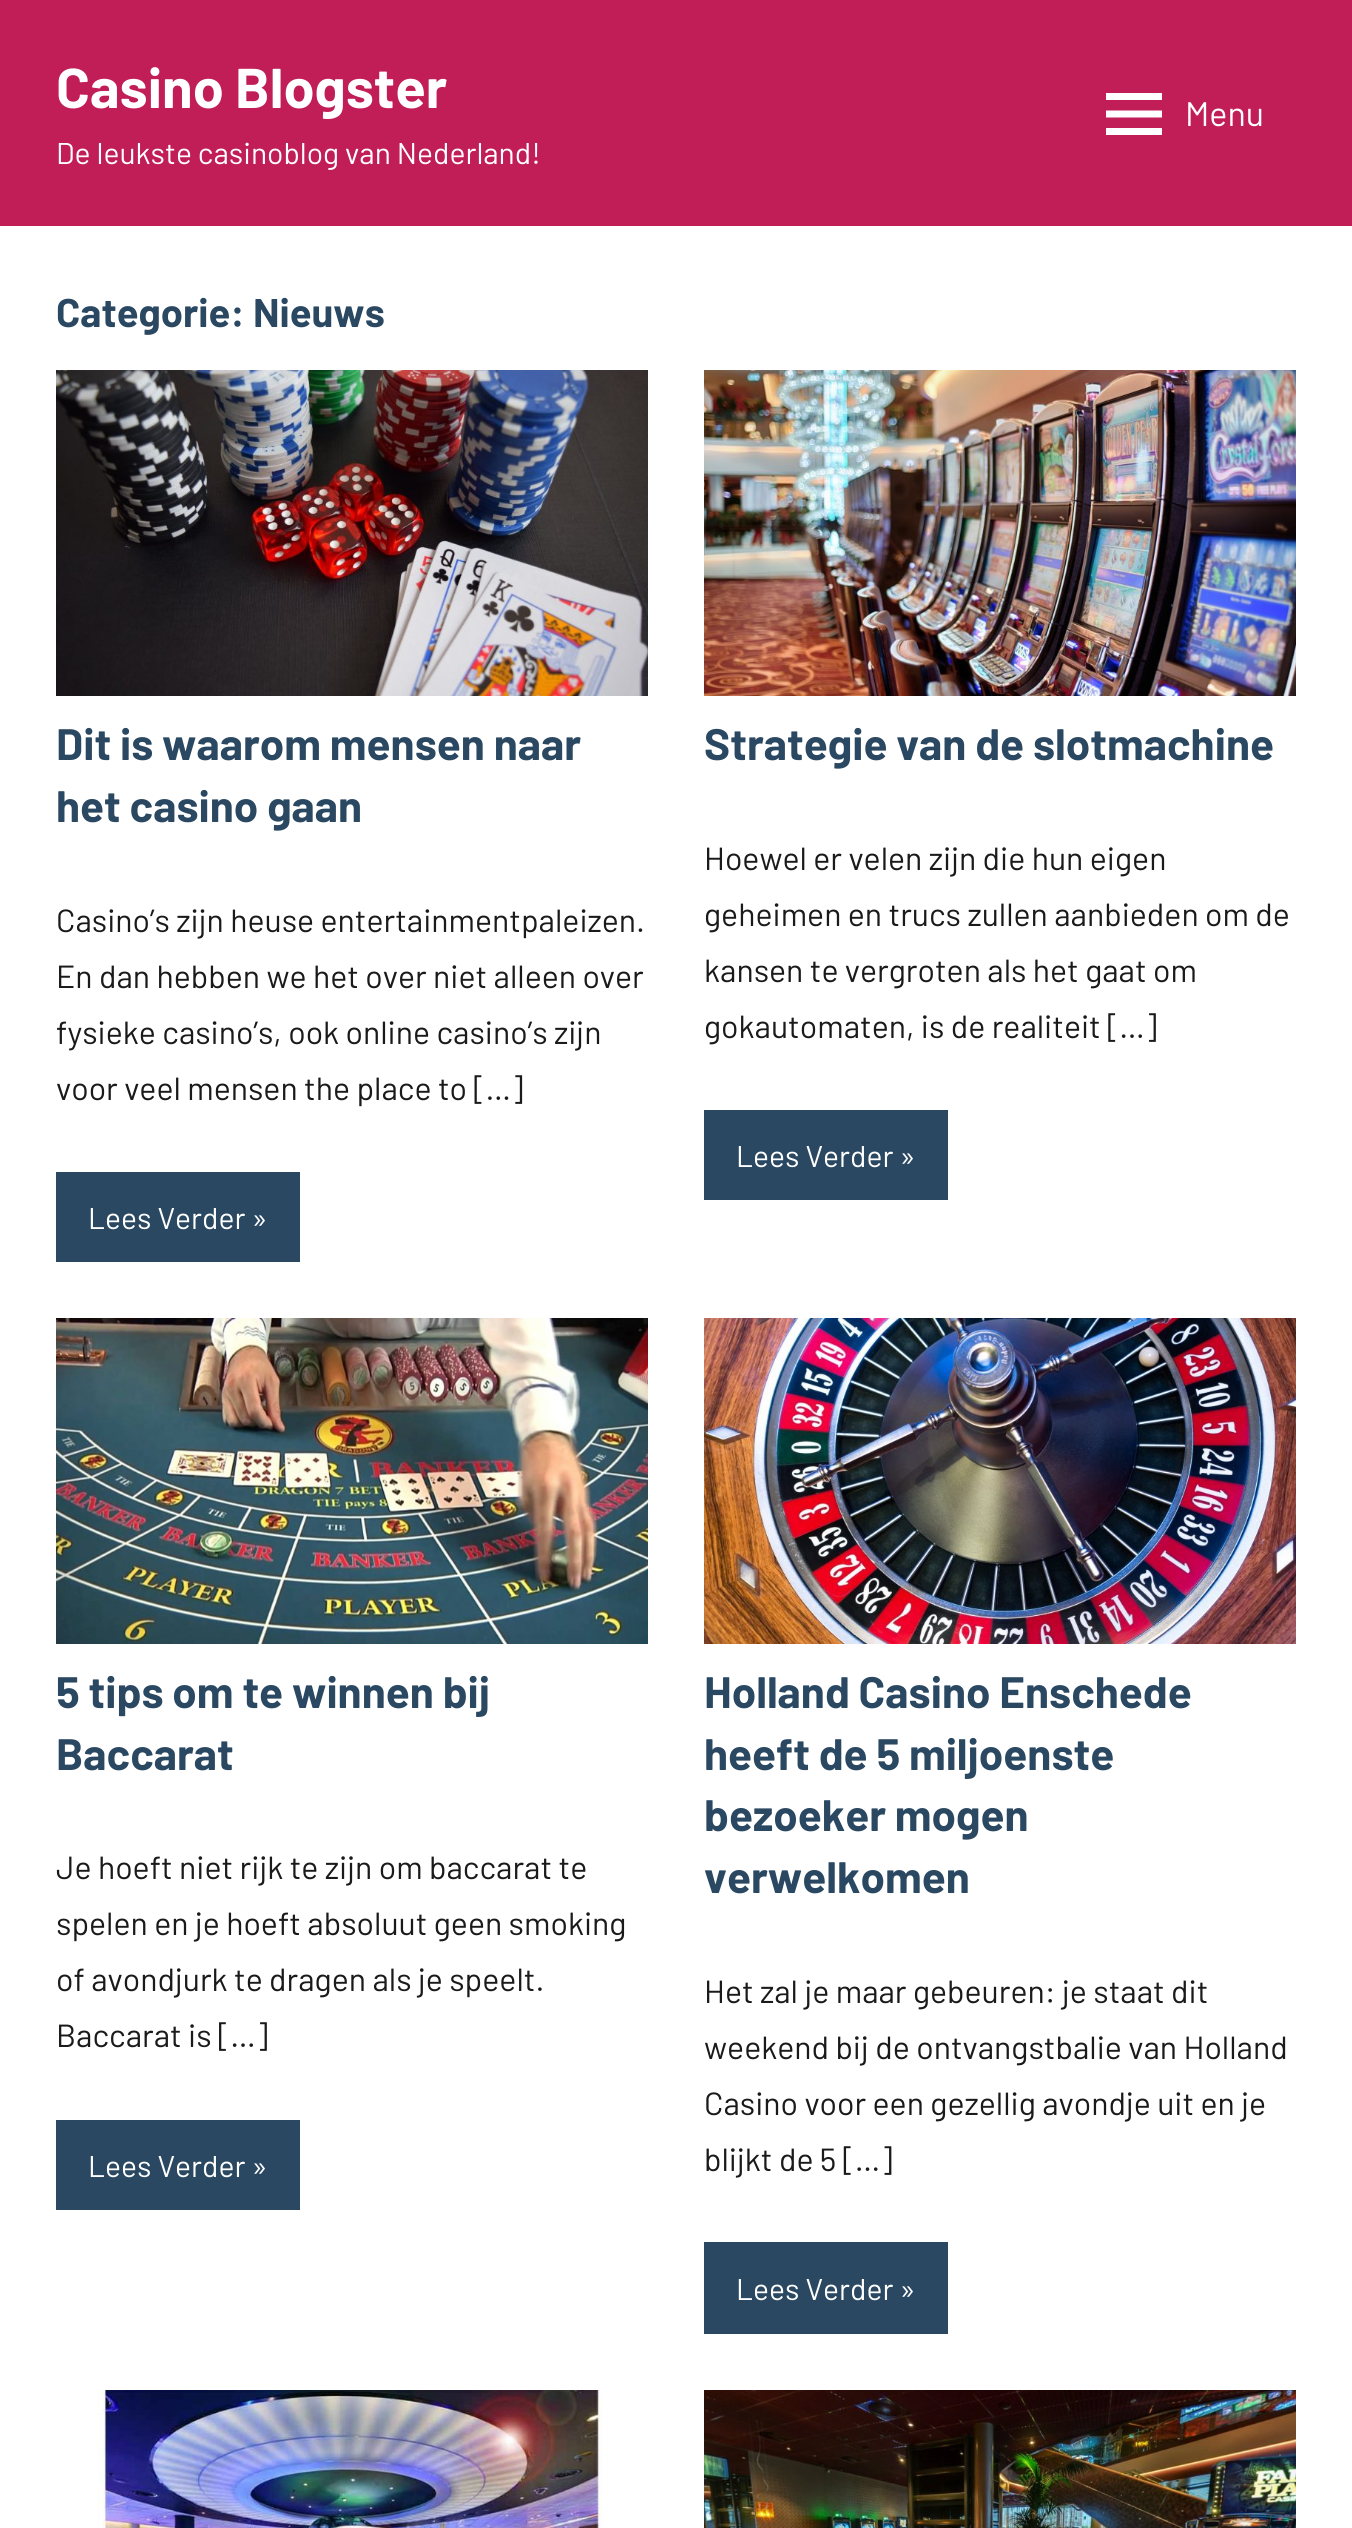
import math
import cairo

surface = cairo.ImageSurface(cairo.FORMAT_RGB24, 1352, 2528)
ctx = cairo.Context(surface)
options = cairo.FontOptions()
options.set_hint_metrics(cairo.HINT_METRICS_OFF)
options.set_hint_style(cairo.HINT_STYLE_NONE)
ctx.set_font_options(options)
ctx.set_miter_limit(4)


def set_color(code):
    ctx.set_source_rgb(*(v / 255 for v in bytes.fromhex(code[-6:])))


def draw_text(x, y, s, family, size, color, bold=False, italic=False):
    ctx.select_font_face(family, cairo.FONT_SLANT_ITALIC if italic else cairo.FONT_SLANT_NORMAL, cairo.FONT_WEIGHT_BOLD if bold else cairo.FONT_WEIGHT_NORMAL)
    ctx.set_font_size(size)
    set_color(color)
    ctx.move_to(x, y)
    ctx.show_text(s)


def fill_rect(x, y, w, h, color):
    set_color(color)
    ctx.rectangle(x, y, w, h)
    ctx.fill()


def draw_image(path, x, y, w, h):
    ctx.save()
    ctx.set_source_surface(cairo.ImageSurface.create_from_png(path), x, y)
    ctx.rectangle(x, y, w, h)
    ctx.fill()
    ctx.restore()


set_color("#c11d57")
ctx.paint()
draw_text(56, 108, "Casino Blogster", "Barlow", 56, "#ffffff", bold=True)
draw_text(56, 164, "De leukste casinoblog van Nederland!", "Barlow", 30, "#ffffff")
draw_image("assets/img1.png", 1106, 93, 56, 42)
draw_text(1185, 126, "Menu", "Barlow", 34, "#ffffff")
fill_rect(0, 226, 1352, 2302, "#ffffff")
draw_text(56, 327, "Categorie: Nieuws", "Barlow", 40, "#2a4861", bold=True)
draw_image("assets/img2.png", 56, 370, 592, 326)
draw_text(56, 760, "Dit is waarom mensen naar", "Barlow", 44, "#2a4861", bold=True)
draw_text(56, 822, "het casino gaan", "Barlow", 44, "#2a4861", bold=True)
draw_text(56, 932, "Casino’s zijn heuse entertainmentpaleizen.", "Barlow", 32, "#1a1a1a")
draw_text(56, 988, "En dan hebben we het over niet alleen over", "Barlow", 32, "#1a1a1a")
draw_text(56, 1044, "fysieke casino’s, ook online casino’s zijn", "Barlow", 32, "#1a1a1a")
draw_text(56, 1100, "voor veel mensen the place to […]", "Barlow", 32, "#1a1a1a")
fill_rect(56, 1172, 244, 90, "#2a4861")
draw_text(88, 1229, "Lees Verder »", "Barlow", 30, "#ffffff")
draw_image("assets/img3.png", 704, 370, 592, 326)
draw_text(704, 760, "Strategie van de slotmachine", "Barlow", 44, "#2a4861", bold=True)
draw_text(704, 870, "Hoewel er velen zijn die hun eigen", "Barlow", 32, "#1a1a1a")
draw_text(704, 926, "geheimen en trucs zullen aanbieden om de", "Barlow", 32, "#1a1a1a")
draw_text(704, 982, "kansen te vergroten als het gaat om", "Barlow", 32, "#1a1a1a")
draw_text(704, 1038, "gokautomaten, is de realiteit […]", "Barlow", 32, "#1a1a1a")
fill_rect(704, 1110, 244, 90, "#2a4861")
draw_text(736, 1167, "Lees Verder »", "Barlow", 30, "#ffffff")
draw_image("assets/img4.png", 56, 1318, 592, 326)
draw_text(56, 1708, "5 tips om te winnen bij", "Barlow", 44, "#2a4861", bold=True)
draw_text(56, 1770, "Baccarat", "Barlow", 44, "#2a4861", bold=True)
draw_text(56, 1879, "Je hoeft niet rijk te zijn om baccarat te", "Barlow", 32, "#1a1a1a")
draw_text(56, 1935, "spelen en je hoeft absoluut geen smoking", "Barlow", 32, "#1a1a1a")
draw_text(56, 1991, "of avondjurk te dragen als je speelt.", "Barlow", 32, "#1a1a1a")
draw_text(56, 2047, "Baccarat is […]", "Barlow", 32, "#1a1a1a")
fill_rect(56, 2120, 244, 90, "#2a4861")
draw_text(88, 2177, "Lees Verder »", "Barlow", 30, "#ffffff")
draw_image("assets/img5.png", 704, 1318, 592, 326)
draw_text(704, 1708, "Holland Casino Enschede", "Barlow", 44, "#2a4861", bold=True)
draw_text(704, 1770, "heeft de 5 miljoenste", "Barlow", 44, "#2a4861", bold=True)
draw_text(704, 1831, "bezoeker mogen", "Barlow", 44, "#2a4861", bold=True)
draw_text(704, 1893, "verwelkomen", "Barlow", 44, "#2a4861", bold=True)
draw_text(704, 2003, "Het zal je maar gebeuren: je staat dit", "Barlow", 32, "#1a1a1a")
draw_text(704, 2059, "weekend bij de ontvangstbalie van Holland", "Barlow", 32, "#1a1a1a")
draw_text(704, 2115, "Casino voor een gezellig avondje uit en je", "Barlow", 32, "#1a1a1a")
draw_text(704, 2171, "blijkt de 5 […]", "Barlow", 32, "#1a1a1a")
fill_rect(704, 2242, 244, 92, "#2a4861")
draw_text(736, 2300, "Lees Verder »", "Barlow", 30, "#ffffff")
draw_image("assets/img6.png", 97, 2390, 506, 138)
draw_image("assets/img7.png", 704, 2390, 592, 138)
surface.write_to_png("output.png")
